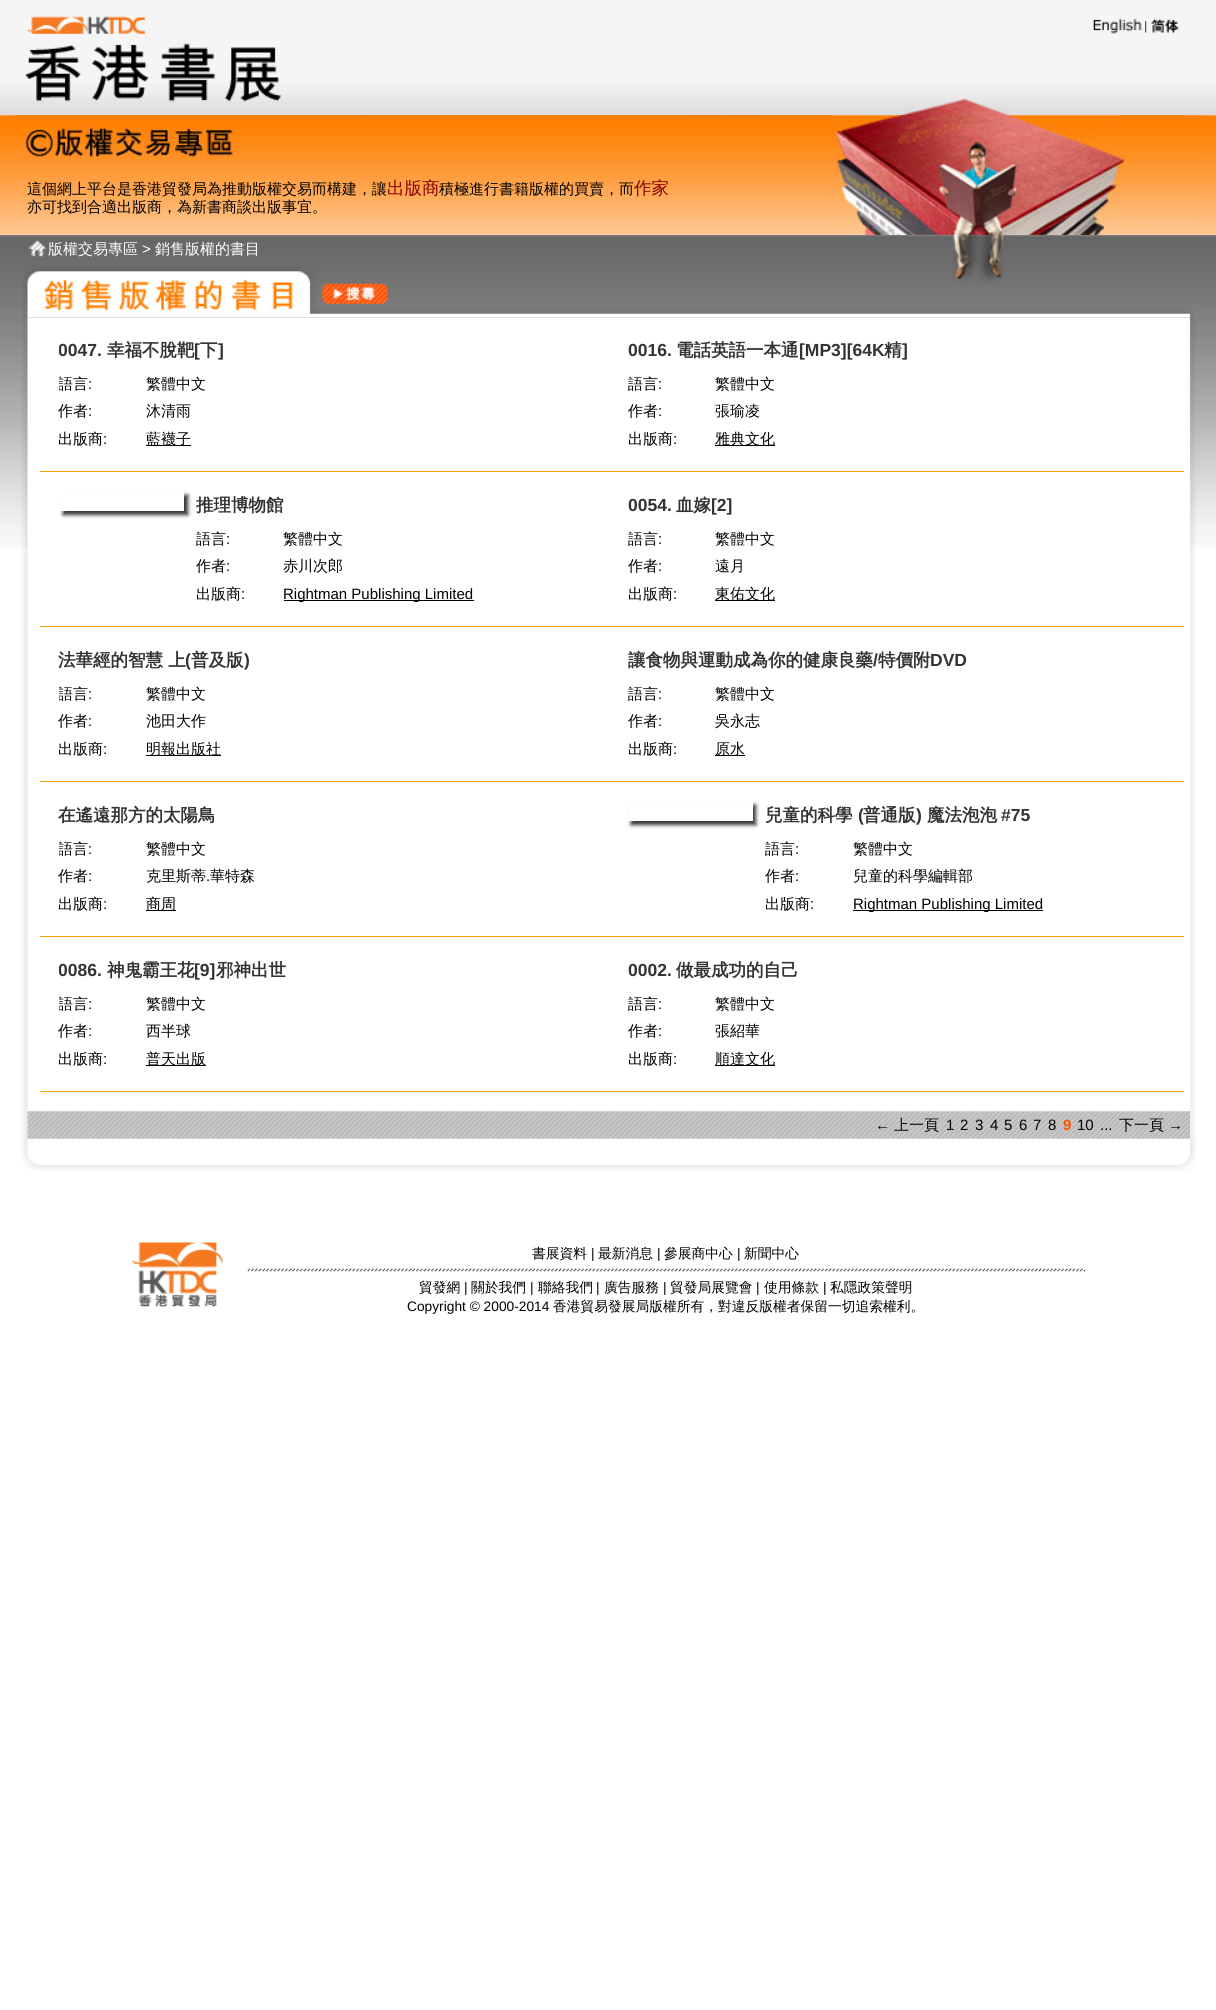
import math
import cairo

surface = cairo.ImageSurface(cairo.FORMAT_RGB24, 1216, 2010)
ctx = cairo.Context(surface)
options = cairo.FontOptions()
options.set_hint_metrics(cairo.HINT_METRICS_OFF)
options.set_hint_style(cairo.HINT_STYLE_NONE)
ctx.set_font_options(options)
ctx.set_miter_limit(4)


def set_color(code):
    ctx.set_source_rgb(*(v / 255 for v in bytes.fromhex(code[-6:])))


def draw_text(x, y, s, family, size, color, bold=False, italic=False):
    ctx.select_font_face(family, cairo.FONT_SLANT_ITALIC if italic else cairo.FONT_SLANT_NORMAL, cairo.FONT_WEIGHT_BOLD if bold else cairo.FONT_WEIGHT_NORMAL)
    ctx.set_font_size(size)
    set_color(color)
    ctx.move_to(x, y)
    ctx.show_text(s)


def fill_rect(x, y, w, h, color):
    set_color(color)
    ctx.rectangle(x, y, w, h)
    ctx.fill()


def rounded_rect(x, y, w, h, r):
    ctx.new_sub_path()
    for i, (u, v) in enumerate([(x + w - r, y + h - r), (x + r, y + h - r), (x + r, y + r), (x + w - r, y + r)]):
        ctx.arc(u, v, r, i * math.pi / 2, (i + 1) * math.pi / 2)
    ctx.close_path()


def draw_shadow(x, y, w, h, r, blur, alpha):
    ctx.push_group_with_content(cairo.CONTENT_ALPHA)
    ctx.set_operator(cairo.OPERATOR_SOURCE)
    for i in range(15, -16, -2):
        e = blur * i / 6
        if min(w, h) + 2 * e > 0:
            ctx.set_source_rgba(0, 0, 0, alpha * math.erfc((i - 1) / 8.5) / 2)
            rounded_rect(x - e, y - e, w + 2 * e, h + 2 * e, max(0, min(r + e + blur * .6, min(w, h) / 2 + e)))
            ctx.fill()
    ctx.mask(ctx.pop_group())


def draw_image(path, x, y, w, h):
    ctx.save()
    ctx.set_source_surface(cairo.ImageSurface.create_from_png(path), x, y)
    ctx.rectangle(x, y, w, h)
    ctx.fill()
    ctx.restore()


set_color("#ffffff")
ctx.paint()
draw_image("assets/img1.png", 0, 0, 1216, 235)
draw_image("assets/img2.png", 15, 16, 1188, 99)
draw_image("assets/img3.png", 1093, 18, 49, 16)
draw_image("assets/img4.png", 1145, 21, 2, 12)
draw_image("assets/img5.png", 1151, 18, 28, 15)
draw_image("assets/img6.png", 15, 115, 1188, 120)
draw_text(27, 194, "這個網上平台是香港貿發局為推動版權交易而構建，讓", "WenQuanYi Zen Hei Medium", 15, "#000000")
draw_text(387, 194, "出版商", "WenQuanYi Zen Hei Medium", 17.5, "#880109")
draw_text(439, 194, "積極進行書籍版權的買賣，而", "WenQuanYi Zen Hei Medium", 15, "#000000")
draw_text(634, 194, "作家", "WenQuanYi Zen Hei Medium", 17.5, "#880109")
draw_text(27, 212, "亦可找到合適出版商，為新書商談出版事宜。", "WenQuanYi Zen Hei Medium", 15, "#000000")
draw_image("assets/img7.png", 833, 115, 291, 120)
draw_image("assets/img8.png", 0, 235, 1216, 313)
draw_image("assets/img9.png", 952, 235, 52, 50)
draw_image("assets/img10.png", 28, 240, 19, 17)
draw_text(48, 254, "版權交易專區", "WenQuanYi Zen Hei Medium", 15, "#ffffff")
draw_text(142, 254, ">", "Liberation Sans", 15, "#ffffff")
draw_text(155, 254, "銷售版權的書目", "WenQuanYi Zen Hei Medium", 15, "#ffffff")
draw_image("assets/img15.png", 21, 1138, 1175, 33)
draw_image("assets/img13.png", 21, 317, 1175, 822)
draw_image("assets/img11.png", 22, 266, 1172, 52)
draw_image("assets/img12.png", 322, 283, 66, 21)
ctx.save()
ctx.rectangle(59, 336, 362, 117)
ctx.clip()
draw_text(58, 356, "0047.", "Liberation Sans", 17.5, "#333333", bold=True)
ctx.restore()
draw_text(107, 356, "幸福不脫靶", "WenQuanYi Zen Hei", 17.5, "#333333", bold=True)
draw_text(194, 356, "[", "Liberation Sans", 17.5, "#333333", bold=True)
draw_text(200, 356, "下", "WenQuanYi Zen Hei", 17.5, "#333333", bold=True)
draw_text(218, 356, "]", "Liberation Sans", 17.5, "#333333", bold=True)
ctx.save()
ctx.rectangle(59, 336, 362, 117)
ctx.clip()
draw_text(58, 389, "語言", "WenQuanYi Zen Hei Medium", 15, "#000000")
ctx.restore()
draw_text(88, 389, ":", "Liberation Sans", 15, "#000000")
draw_text(146, 389, "繁體中文", "WenQuanYi Zen Hei Medium", 15, "#000000")
draw_text(58, 416, "作者", "WenQuanYi Zen Hei Medium", 15, "#000000")
draw_text(88, 416, ":", "Liberation Sans", 15, "#000000")
draw_text(146, 416, "沐清雨", "WenQuanYi Zen Hei Medium", 15, "#000000")
draw_text(58, 444, "出版商", "WenQuanYi Zen Hei Medium", 15, "#000000")
draw_text(103, 444, ":", "Liberation Sans", 15, "#000000")
fill_rect(146, 445, 45, 1, "#000000")
draw_text(146, 444, "藍襪子", "WenQuanYi Zen Hei Medium", 15, "#000000")
draw_text(628, 356, "0016.", "Liberation Sans", 17.5, "#333333", bold=True)
draw_text(676, 356, "電話英語一本通", "WenQuanYi Zen Hei", 17.5, "#333333", bold=True)
draw_text(799, 356, "[MP3][64K", "Liberation Sans", 17.5, "#333333", bold=True)
draw_text(884, 356, "精", "WenQuanYi Zen Hei", 17.5, "#333333", bold=True)
draw_text(902, 356, "]", "Liberation Sans", 17.5, "#333333", bold=True)
draw_text(628, 389, "語言", "WenQuanYi Zen Hei Medium", 15, "#000000")
draw_text(658, 389, ":", "Liberation Sans", 15, "#000000")
draw_text(715, 389, "繁體中文", "WenQuanYi Zen Hei Medium", 15, "#000000")
draw_text(628, 416, "作者", "WenQuanYi Zen Hei Medium", 15, "#000000")
draw_text(658, 416, ":", "Liberation Sans", 15, "#000000")
draw_text(715, 416, "張瑜凌", "WenQuanYi Zen Hei Medium", 15, "#000000")
draw_text(628, 444, "出版商", "WenQuanYi Zen Hei Medium", 15, "#000000")
draw_text(673, 444, ":", "Liberation Sans", 15, "#000000")
fill_rect(715, 445, 60, 1, "#000000")
draw_text(715, 444, "雅典文化", "WenQuanYi Zen Hei Medium", 15, "#000000")
fill_rect(40, 471, 1144, 1, "#ffa500")
ctx.save()
ctx.set_fill_rule(cairo.FILL_RULE_EVEN_ODD)
ctx.new_path()
ctx.move_to(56, 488)
ctx.line_to(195, 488)
ctx.line_to(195, 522)
ctx.line_to(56, 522)
ctx.close_path()
ctx.move_to(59, 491)
ctx.line_to(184, 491)
ctx.line_to(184, 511)
ctx.line_to(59, 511)
ctx.close_path()
ctx.clip()
set_color("#333333")
draw_shadow(63, 495, 125, 20, 0, 2, 1)
ctx.restore()
draw_text(196, 511, "推理博物館", "WenQuanYi Zen Hei", 17.5, "#333333", bold=True)
draw_text(196, 544, "語言", "WenQuanYi Zen Hei Medium", 15, "#000000")
draw_text(226, 544, ":", "Liberation Sans", 15, "#000000")
draw_text(283, 544, "繁體中文", "WenQuanYi Zen Hei Medium", 15, "#000000")
draw_text(196, 571, "作者", "WenQuanYi Zen Hei Medium", 15, "#000000")
draw_text(226, 571, ":", "Liberation Sans", 15, "#000000")
draw_text(283, 571, "赤川次郎", "WenQuanYi Zen Hei Medium", 15, "#000000")
draw_text(196, 599, "出版商", "WenQuanYi Zen Hei Medium", 15, "#000000")
draw_text(241, 599, ":", "Liberation Sans", 15, "#000000")
fill_rect(284, 600, 190, 1, "#000000")
draw_text(283, 599, "Rightman Publishing Limited", "Liberation Sans", 15, "#000000")
draw_text(628, 511, "0054.", "Liberation Sans", 17.5, "#333333", bold=True)
draw_text(676, 511, "血嫁", "WenQuanYi Zen Hei", 17.5, "#333333", bold=True)
draw_text(711, 511, "[2]", "Liberation Sans", 17.5, "#333333", bold=True)
draw_text(628, 544, "語言", "WenQuanYi Zen Hei Medium", 15, "#000000")
draw_text(658, 544, ":", "Liberation Sans", 15, "#000000")
draw_text(715, 544, "繁體中文", "WenQuanYi Zen Hei Medium", 15, "#000000")
draw_text(628, 571, "作者", "WenQuanYi Zen Hei Medium", 15, "#000000")
draw_text(658, 571, ":", "Liberation Sans", 15, "#000000")
draw_text(715, 571, "遠月", "WenQuanYi Zen Hei Medium", 15, "#000000")
draw_text(628, 599, "出版商", "WenQuanYi Zen Hei Medium", 15, "#000000")
draw_text(673, 599, ":", "Liberation Sans", 15, "#000000")
fill_rect(715, 600, 60, 1, "#000000")
draw_text(715, 599, "東佑文化", "WenQuanYi Zen Hei Medium", 15, "#000000")
fill_rect(40, 626, 1144, 1, "#ffa500")
draw_text(58, 666, "法華經的智慧 上", "WenQuanYi Zen Hei", 17.5, "#333333", bold=True)
draw_text(185, 666, "(", "Liberation Sans", 17.5, "#333333", bold=True)
draw_text(191, 666, "普及版", "WenQuanYi Zen Hei", 17.5, "#333333", bold=True)
draw_text(244, 666, ")", "Liberation Sans", 17.5, "#333333", bold=True)
ctx.save()
ctx.rectangle(59, 646, 362, 117)
ctx.clip()
draw_text(58, 699, "語言", "WenQuanYi Zen Hei Medium", 15, "#000000")
ctx.restore()
draw_text(88, 699, ":", "Liberation Sans", 15, "#000000")
draw_text(146, 699, "繁體中文", "WenQuanYi Zen Hei Medium", 15, "#000000")
draw_text(58, 726, "作者", "WenQuanYi Zen Hei Medium", 15, "#000000")
draw_text(88, 726, ":", "Liberation Sans", 15, "#000000")
draw_text(146, 726, "池田大作", "WenQuanYi Zen Hei Medium", 15, "#000000")
draw_text(58, 754, "出版商", "WenQuanYi Zen Hei Medium", 15, "#000000")
draw_text(103, 754, ":", "Liberation Sans", 15, "#000000")
fill_rect(146, 755, 75, 1, "#000000")
draw_text(146, 754, "明報出版社", "WenQuanYi Zen Hei Medium", 15, "#000000")
draw_text(628, 666, "讓食物與運動成為你的健康良藥", "WenQuanYi Zen Hei", 17.5, "#333333", bold=True)
draw_text(873, 666, "/", "Liberation Sans", 17.5, "#333333", bold=True)
draw_text(878, 666, "特價附", "WenQuanYi Zen Hei", 17.5, "#333333", bold=True)
draw_text(930, 666, "DVD", "Liberation Sans", 17.5, "#333333", bold=True)
draw_text(628, 699, "語言", "WenQuanYi Zen Hei Medium", 15, "#000000")
draw_text(658, 699, ":", "Liberation Sans", 15, "#000000")
draw_text(715, 699, "繁體中文", "WenQuanYi Zen Hei Medium", 15, "#000000")
draw_text(628, 726, "作者", "WenQuanYi Zen Hei Medium", 15, "#000000")
draw_text(658, 726, ":", "Liberation Sans", 15, "#000000")
draw_text(715, 726, "吳永志", "WenQuanYi Zen Hei Medium", 15, "#000000")
draw_text(628, 754, "出版商", "WenQuanYi Zen Hei Medium", 15, "#000000")
draw_text(673, 754, ":", "Liberation Sans", 15, "#000000")
fill_rect(715, 755, 30, 1, "#000000")
draw_text(715, 754, "原水", "WenQuanYi Zen Hei Medium", 15, "#000000")
fill_rect(40, 781, 1144, 1, "#ffa500")
draw_text(58, 821, "在遙遠那方的太陽鳥", "WenQuanYi Zen Hei", 17.5, "#333333", bold=True)
ctx.save()
ctx.rectangle(59, 801, 362, 117)
ctx.clip()
draw_text(58, 854, "語言", "WenQuanYi Zen Hei Medium", 15, "#000000")
ctx.restore()
draw_text(88, 854, ":", "Liberation Sans", 15, "#000000")
draw_text(146, 854, "繁體中文", "WenQuanYi Zen Hei Medium", 15, "#000000")
draw_text(58, 881, "作者", "WenQuanYi Zen Hei Medium", 15, "#000000")
draw_text(88, 881, ":", "Liberation Sans", 15, "#000000")
draw_text(146, 881, "克里斯蒂", "WenQuanYi Zen Hei Medium", 15, "#000000")
draw_text(206, 881, ".", "Liberation Sans", 15, "#000000")
draw_text(210, 881, "華特森", "WenQuanYi Zen Hei Medium", 15, "#000000")
draw_text(58, 909, "出版商", "WenQuanYi Zen Hei Medium", 15, "#000000")
draw_text(103, 909, ":", "Liberation Sans", 15, "#000000")
fill_rect(146, 910, 30, 1, "#000000")
draw_text(146, 909, "商周", "WenQuanYi Zen Hei Medium", 15, "#000000")
ctx.save()
ctx.set_fill_rule(cairo.FILL_RULE_EVEN_ODD)
ctx.new_path()
ctx.move_to(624, 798)
ctx.line_to(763, 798)
ctx.line_to(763, 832)
ctx.line_to(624, 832)
ctx.close_path()
ctx.move_to(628, 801)
ctx.line_to(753, 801)
ctx.line_to(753, 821)
ctx.line_to(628, 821)
ctx.close_path()
ctx.clip()
set_color("#333333")
draw_shadow(631, 805, 125, 20, 0, 2, 1)
ctx.restore()
draw_text(765, 821, "兒童的科學", "WenQuanYi Zen Hei", 17.5, "#333333", bold=True)
draw_text(858, 821, "(", "Liberation Sans", 17.5, "#333333", bold=True)
draw_text(863, 821, "普通版", "WenQuanYi Zen Hei", 17.5, "#333333", bold=True)
draw_text(916, 821, ")", "Liberation Sans", 17.5, "#333333", bold=True)
draw_text(927, 821, "魔法泡泡", "WenQuanYi Zen Hei", 17.5, "#333333", bold=True)
draw_text(1001, 821, "#75", "Liberation Sans", 17.5, "#333333", bold=True)
draw_text(765, 854, "語言", "WenQuanYi Zen Hei Medium", 15, "#000000")
draw_text(795, 854, ":", "Liberation Sans", 15, "#000000")
draw_text(853, 854, "繁體中文", "WenQuanYi Zen Hei Medium", 15, "#000000")
draw_text(765, 881, "作者", "WenQuanYi Zen Hei Medium", 15, "#000000")
draw_text(795, 881, ":", "Liberation Sans", 15, "#000000")
draw_text(853, 881, "兒童的科學編輯部", "WenQuanYi Zen Hei Medium", 15, "#000000")
draw_text(765, 909, "出版商", "WenQuanYi Zen Hei Medium", 15, "#000000")
draw_text(810, 909, ":", "Liberation Sans", 15, "#000000")
fill_rect(853, 910, 190, 1, "#000000")
draw_text(853, 909, "Rightman Publishing Limited", "Liberation Sans", 15, "#000000")
fill_rect(40, 936, 1144, 1, "#ffa500")
ctx.save()
ctx.rectangle(59, 956, 362, 117)
ctx.clip()
draw_text(58, 976, "0086.", "Liberation Sans", 17.5, "#333333", bold=True)
ctx.restore()
draw_text(107, 976, "神鬼霸王花", "WenQuanYi Zen Hei", 17.5, "#333333", bold=True)
draw_text(194, 976, "[9]", "Liberation Sans", 17.5, "#333333", bold=True)
draw_text(216, 976, "邪神出世", "WenQuanYi Zen Hei", 17.5, "#333333", bold=True)
ctx.save()
ctx.rectangle(59, 956, 362, 117)
ctx.clip()
draw_text(58, 1009, "語言", "WenQuanYi Zen Hei Medium", 15, "#000000")
ctx.restore()
draw_text(88, 1009, ":", "Liberation Sans", 15, "#000000")
draw_text(146, 1009, "繁體中文", "WenQuanYi Zen Hei Medium", 15, "#000000")
draw_text(58, 1036, "作者", "WenQuanYi Zen Hei Medium", 15, "#000000")
draw_text(88, 1036, ":", "Liberation Sans", 15, "#000000")
draw_text(146, 1036, "西半球", "WenQuanYi Zen Hei Medium", 15, "#000000")
draw_text(58, 1064, "出版商", "WenQuanYi Zen Hei Medium", 15, "#000000")
draw_text(103, 1064, ":", "Liberation Sans", 15, "#000000")
fill_rect(146, 1065, 60, 1, "#000000")
draw_text(146, 1064, "普天出版", "WenQuanYi Zen Hei Medium", 15, "#000000")
draw_text(628, 976, "0002.", "Liberation Sans", 17.5, "#333333", bold=True)
draw_text(676, 976, "做最成功的自己", "WenQuanYi Zen Hei", 17.5, "#333333", bold=True)
draw_text(628, 1009, "語言", "WenQuanYi Zen Hei Medium", 15, "#000000")
draw_text(658, 1009, ":", "Liberation Sans", 15, "#000000")
draw_text(715, 1009, "繁體中文", "WenQuanYi Zen Hei Medium", 15, "#000000")
draw_text(628, 1036, "作者", "WenQuanYi Zen Hei Medium", 15, "#000000")
draw_text(658, 1036, ":", "Liberation Sans", 15, "#000000")
draw_text(715, 1036, "張紹華", "WenQuanYi Zen Hei Medium", 15, "#000000")
draw_text(628, 1064, "出版商", "WenQuanYi Zen Hei Medium", 15, "#000000")
draw_text(673, 1064, ":", "Liberation Sans", 15, "#000000")
fill_rect(715, 1065, 60, 1, "#000000")
draw_text(715, 1064, "順達文化", "WenQuanYi Zen Hei Medium", 15, "#000000")
fill_rect(40, 1091, 1144, 1, "#ffa500")
draw_image("assets/img14.png", 27, 1111, 1163, 28)
draw_text(875, 1130, "←", "Liberation Sans", 15, "#000000")
draw_text(894, 1130, "上一頁", "WenQuanYi Zen Hei Medium", 15, "#000000")
draw_text(946, 1130, "1", "Liberation Sans", 15, "#000000")
draw_text(960, 1130, "2", "Liberation Sans", 15, "#000000")
draw_text(975, 1130, "3", "Liberation Sans", 15, "#000000")
draw_text(990, 1130, "4", "Liberation Sans", 15, "#000000")
draw_text(1004, 1130, "5", "Liberation Sans", 15, "#000000")
draw_text(1019, 1130, "6", "Liberation Sans", 15, "#000000")
draw_text(1033, 1130, "7", "Liberation Sans", 15, "#000000")
draw_text(1048, 1130, "8", "Liberation Sans", 15, "#000000")
draw_text(1063, 1130, "9", "Liberation Sans", 15, "#ff5400", bold=True)
draw_text(1077, 1130, "10", "Liberation Sans", 15, "#000000")
draw_text(1100, 1130, "...", "Liberation Sans", 15, "#000000")
draw_text(1119, 1130, "下一頁", "WenQuanYi Zen Hei Medium", 15, "#000000")
draw_text(1168, 1130, "→", "Liberation Sans", 15, "#000000")
draw_image("assets/img16.png", 132, 1242, 91, 65)
draw_text(532, 1258, "書展資料", "WenQuanYi Zen Hei Medium", 13.75, "#000000")
draw_text(591, 1258, "|", "Liberation Sans", 13.75, "#000000")
draw_text(598, 1258, "最新消息", "WenQuanYi Zen Hei Medium", 13.75, "#000000")
draw_text(657, 1258, "|", "Liberation Sans", 13.75, "#000000")
draw_text(664, 1258, "參展商中心", "WenQuanYi Zen Hei Medium", 13.75, "#000000")
draw_text(737, 1258, "|", "Liberation Sans", 13.75, "#000000")
draw_text(744, 1258, "新聞中心", "WenQuanYi Zen Hei Medium", 13.75, "#000000")
draw_image("assets/img17.png", 247, 1268, 838, 4)
draw_text(419, 1292, "貿發網", "WenQuanYi Zen Hei Medium", 13.75, "#000000")
draw_text(464, 1292, "|", "Liberation Sans", 13.75, "#000000")
draw_text(471, 1292, "關於我們", "WenQuanYi Zen Hei Medium", 13.75, "#000000")
draw_text(530, 1292, "|", "Liberation Sans", 13.75, "#000000")
draw_text(538, 1292, "聯絡我們", "WenQuanYi Zen Hei Medium", 13.75, "#000000")
draw_text(596, 1292, "|", "Liberation Sans", 13.75, "#000000")
draw_text(604, 1292, "廣告服務", "WenQuanYi Zen Hei Medium", 13.75, "#000000")
draw_text(663, 1292, "|", "Liberation Sans", 13.75, "#000000")
draw_text(670, 1292, "貿發局展覽會", "WenQuanYi Zen Hei Medium", 13.75, "#000000")
draw_text(756, 1292, "|", "Liberation Sans", 13.75, "#000000")
draw_text(764, 1292, "使用條款", "WenQuanYi Zen Hei Medium", 13.75, "#000000")
draw_text(823, 1292, "|", "Liberation Sans", 13.75, "#000000")
draw_text(830, 1292, "私隱政策聲明", "WenQuanYi Zen Hei Medium", 13.75, "#000000")
draw_text(407, 1311, "Copyright © 2000-2014", "Liberation Sans", 13.75, "#000000")
draw_text(553, 1311, "香港貿易發展局版權所有，對違反版權者保留一切追索權利。", "WenQuanYi Zen Hei Medium", 13.75, "#000000")
surface.write_to_png("output.png")
